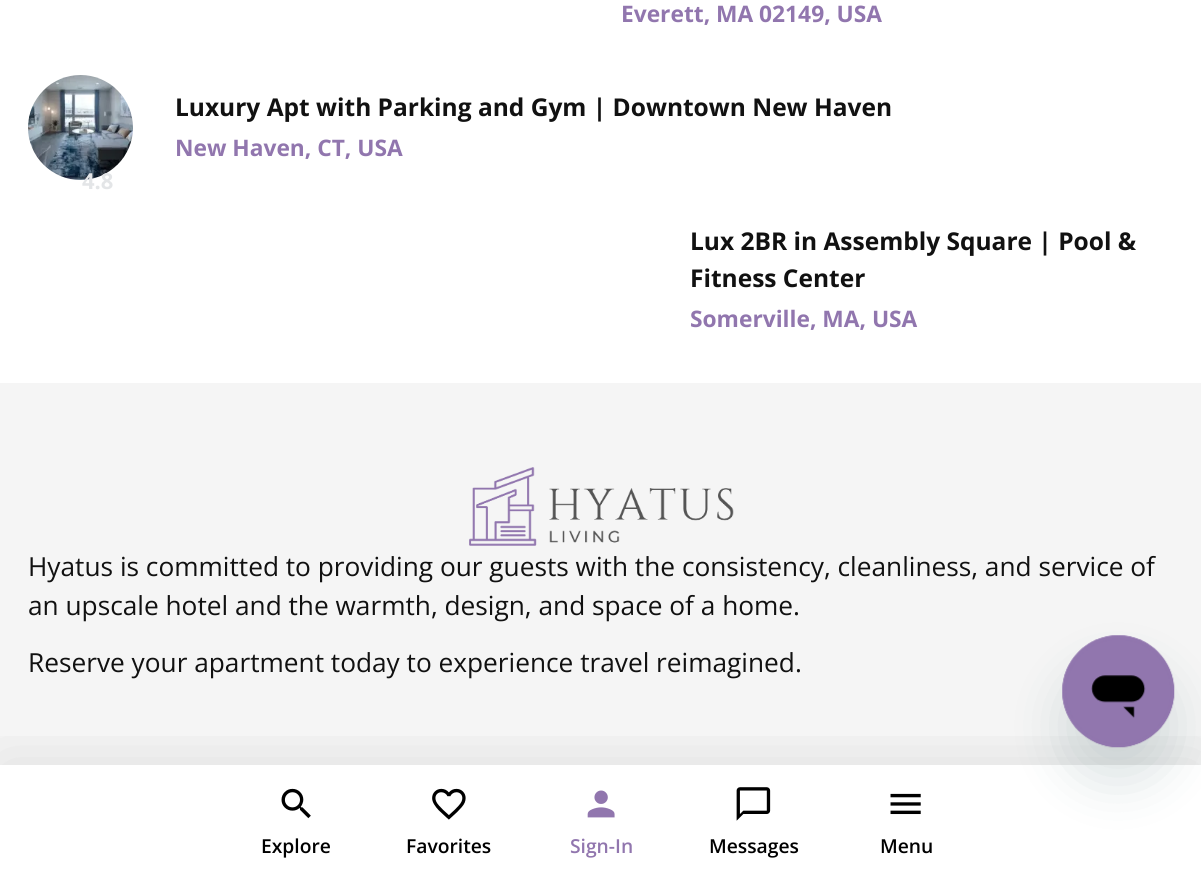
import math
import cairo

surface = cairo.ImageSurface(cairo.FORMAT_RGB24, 1201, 877)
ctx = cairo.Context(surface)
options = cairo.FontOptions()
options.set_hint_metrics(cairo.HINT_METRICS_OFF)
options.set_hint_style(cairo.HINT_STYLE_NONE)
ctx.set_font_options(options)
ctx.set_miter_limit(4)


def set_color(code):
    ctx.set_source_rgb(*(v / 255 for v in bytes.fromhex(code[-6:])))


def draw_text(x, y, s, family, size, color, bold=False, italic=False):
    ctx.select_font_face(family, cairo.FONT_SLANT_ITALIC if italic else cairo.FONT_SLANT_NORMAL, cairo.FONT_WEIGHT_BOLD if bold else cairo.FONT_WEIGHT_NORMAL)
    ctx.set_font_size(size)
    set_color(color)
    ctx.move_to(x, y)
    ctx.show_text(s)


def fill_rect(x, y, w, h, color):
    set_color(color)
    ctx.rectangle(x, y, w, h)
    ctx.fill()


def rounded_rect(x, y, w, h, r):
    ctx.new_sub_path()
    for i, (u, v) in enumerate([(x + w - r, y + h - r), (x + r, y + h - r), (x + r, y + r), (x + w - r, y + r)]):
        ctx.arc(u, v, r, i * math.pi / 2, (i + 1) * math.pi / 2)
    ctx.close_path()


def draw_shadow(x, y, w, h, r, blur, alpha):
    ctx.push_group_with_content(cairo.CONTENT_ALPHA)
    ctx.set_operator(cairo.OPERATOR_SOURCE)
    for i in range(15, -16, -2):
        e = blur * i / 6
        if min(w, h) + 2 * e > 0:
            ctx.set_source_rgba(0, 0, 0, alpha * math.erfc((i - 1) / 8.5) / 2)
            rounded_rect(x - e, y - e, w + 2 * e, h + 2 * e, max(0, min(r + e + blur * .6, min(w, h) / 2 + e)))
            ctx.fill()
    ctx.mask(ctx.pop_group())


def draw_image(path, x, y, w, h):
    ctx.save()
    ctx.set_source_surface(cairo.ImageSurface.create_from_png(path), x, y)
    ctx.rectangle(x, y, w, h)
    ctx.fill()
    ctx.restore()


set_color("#ffffff")
ctx.paint()
draw_text(621, 22, "Everett, MA 02149, USA", "Open Sans", 22.75, "#9176ae", bold=True)
draw_image("assets/img1.png", 28, 75, 105, 105)
draw_text(175, 116, "Luxury Apt with Parking and Gym | Downtown New Haven", "Open Sans", 24.5, "#111111", bold=True)
draw_text(175, 156, "New Haven, CT, USA", "Open Sans", 22.75, "#9176ae", bold=True)
draw_text(690, 250, "Lux 2BR in Assembly Square | Pool &", "Open Sans", 24.5, "#111111", bold=True)
draw_text(690, 287, "Fitness Center", "Open Sans", 24.5, "#111111", bold=True)
draw_text(690, 327, "Somerville, MA, USA", "Open Sans", 22.75, "#9176ae", bold=True)
fill_rect(0, 383, 1201, 382, "#f5f5f5")
draw_image("assets/img2.png", 469, 467, 265, 79)
draw_text(28, 576, "Hyatus is committed to providing our guests with the consistency, cleanliness, and service of", "Open Sans", 26.25, "#111111")
draw_text(28, 615, "an upscale hotel and the warmth, design, and space of a home.", "Open Sans", 26.25, "#111111")
draw_text(28, 672, "Reserve your apartment today to experience travel reimagined.", "Open Sans", 26.25, "#111111")
draw_text(82, 189, "4.8", "Open Sans", 22, "#e3e5e7", bold=True)
ctx.save()
ctx.rectangle(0, 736, 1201, 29)
ctx.clip()
set_color("#000000")
draw_shadow(0, 763, 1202, 114, 0, 35, 0.09)
ctx.restore()
draw_image("assets/img3.png", 281, 788, 30, 31)
draw_text(261, 853, "Explore", "Open Sans SemiBold", 19.25, "#000000")
draw_image("assets/img4.png", 432, 788, 34, 32)
draw_text(406, 853, "Favorites", "Open Sans SemiBold", 19.25, "#000000")
draw_image("assets/img5.png", 587, 790, 28, 28)
draw_text(570, 853, "Sign-In", "Open Sans SemiBold", 19.25, "#9176ae")
draw_image("assets/img6.png", 736, 787, 35, 34)
draw_text(709, 853, "Messages", "Open Sans SemiBold", 19.25, "#000000")
draw_image("assets/img7.png", 890, 793, 31, 22)
draw_text(880, 853, "Menu", "Open Sans SemiBold", 19.25, "#000000")
set_color("#17494d")
draw_shadow(1062, 670, 112, 112, 56, 26, 0.15)
draw_image("assets/img8.png", 1062, 635, 113, 113)
surface.write_to_png("output.png")
